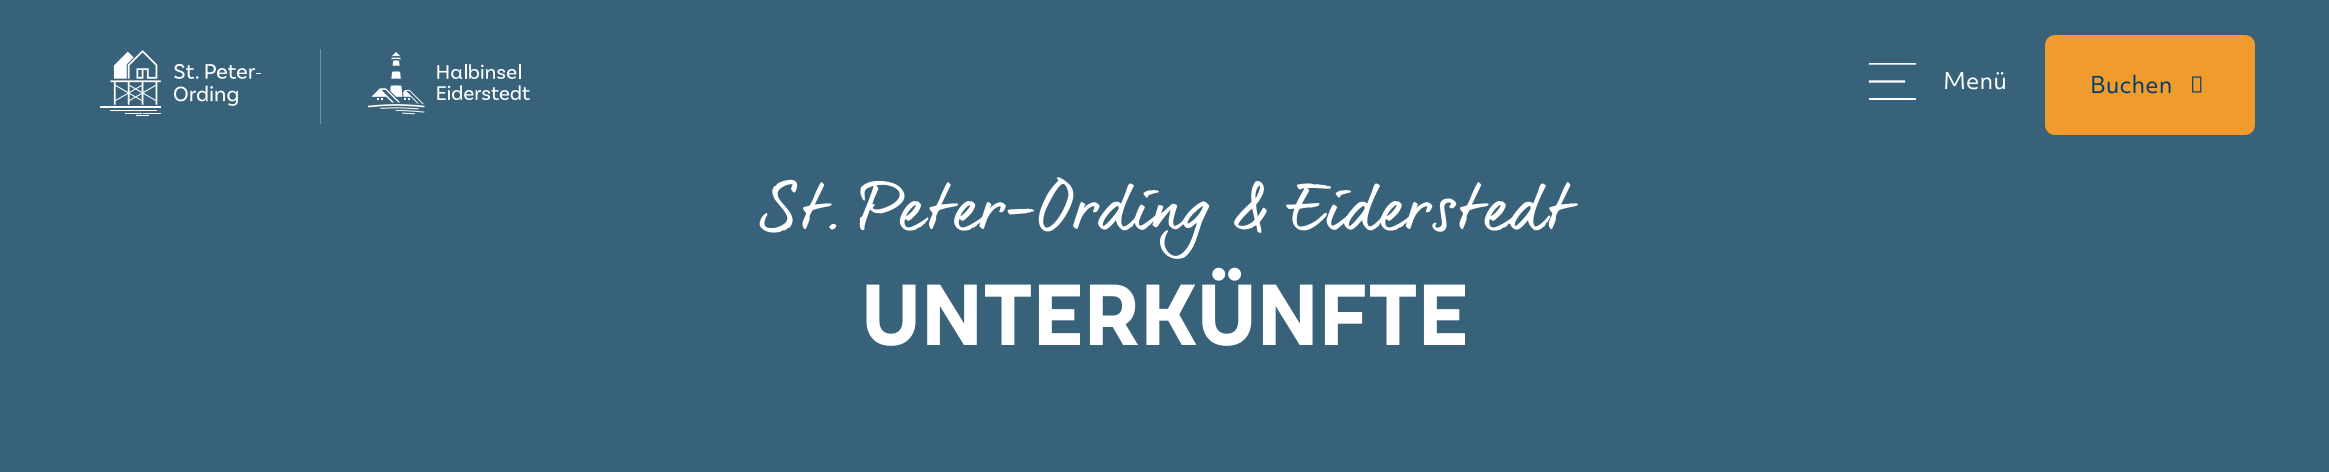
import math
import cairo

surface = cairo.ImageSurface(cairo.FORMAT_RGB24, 2329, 472)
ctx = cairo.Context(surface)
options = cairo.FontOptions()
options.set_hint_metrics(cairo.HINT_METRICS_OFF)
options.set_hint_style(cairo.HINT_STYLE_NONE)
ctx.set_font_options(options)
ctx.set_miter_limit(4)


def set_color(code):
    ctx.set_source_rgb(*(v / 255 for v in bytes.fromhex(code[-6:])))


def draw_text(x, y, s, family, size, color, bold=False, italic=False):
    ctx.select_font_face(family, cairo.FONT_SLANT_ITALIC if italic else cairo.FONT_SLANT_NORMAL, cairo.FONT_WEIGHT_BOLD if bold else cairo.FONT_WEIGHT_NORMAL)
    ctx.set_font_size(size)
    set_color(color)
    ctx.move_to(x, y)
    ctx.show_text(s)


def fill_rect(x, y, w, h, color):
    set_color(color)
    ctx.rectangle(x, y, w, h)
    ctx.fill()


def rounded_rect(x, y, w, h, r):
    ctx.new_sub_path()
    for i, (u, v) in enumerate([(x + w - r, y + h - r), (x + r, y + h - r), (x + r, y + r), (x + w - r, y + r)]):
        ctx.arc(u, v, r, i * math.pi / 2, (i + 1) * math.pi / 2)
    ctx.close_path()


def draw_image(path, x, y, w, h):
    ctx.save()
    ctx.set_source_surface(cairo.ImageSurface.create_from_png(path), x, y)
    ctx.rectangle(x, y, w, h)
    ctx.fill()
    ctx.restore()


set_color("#38627a")
ctx.paint()
draw_image("assets/img1.png", 100, 50, 161, 66)
fill_rect(320, 49, 1, 75, "#7491a2")
draw_image("assets/img2.png", 368, 52, 162, 63)
ctx.save()
ctx.rectangle(1868, 63, 50, 37)
ctx.clip()
ctx.new_path()
ctx.move_to(1870, 63.5)
ctx.line_to(1915, 63.5)
set_color("#ffffff")
ctx.set_line_width(2.3)
ctx.set_line_cap(cairo.LINE_CAP_SQUARE)
ctx.set_line_join(cairo.LINE_JOIN_ROUND)
ctx.stroke()
ctx.restore()
ctx.new_path()
ctx.move_to(1870, 81.5)
ctx.line_to(1904, 81.5)
set_color("#ffffff")
ctx.set_line_width(2.3)
ctx.set_line_cap(cairo.LINE_CAP_SQUARE)
ctx.stroke()
fill_rect(1869, 98, 47, 2, "#ffffff")
draw_text(1943, 89, "Menü", "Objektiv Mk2", 22.5, "#ffffff")
set_color("#ef9b2d")
rounded_rect(2045, 35, 210, 100, 10)
ctx.fill()
draw_text(2090, 93, "Buchen", "Objektiv Mk2", 22.5, "#003c6e")
draw_image("assets/img3.png", 2192, 76, 10, 17)
draw_text(758, 228, "St. Peter-Ording & Eiderstedt", "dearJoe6", 60, "#ffffff")
draw_text(861, 345, "UNTERKÜNFTE", "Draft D", 86.25, "#ffffff", bold=True)
surface.write_to_png("output.png")
